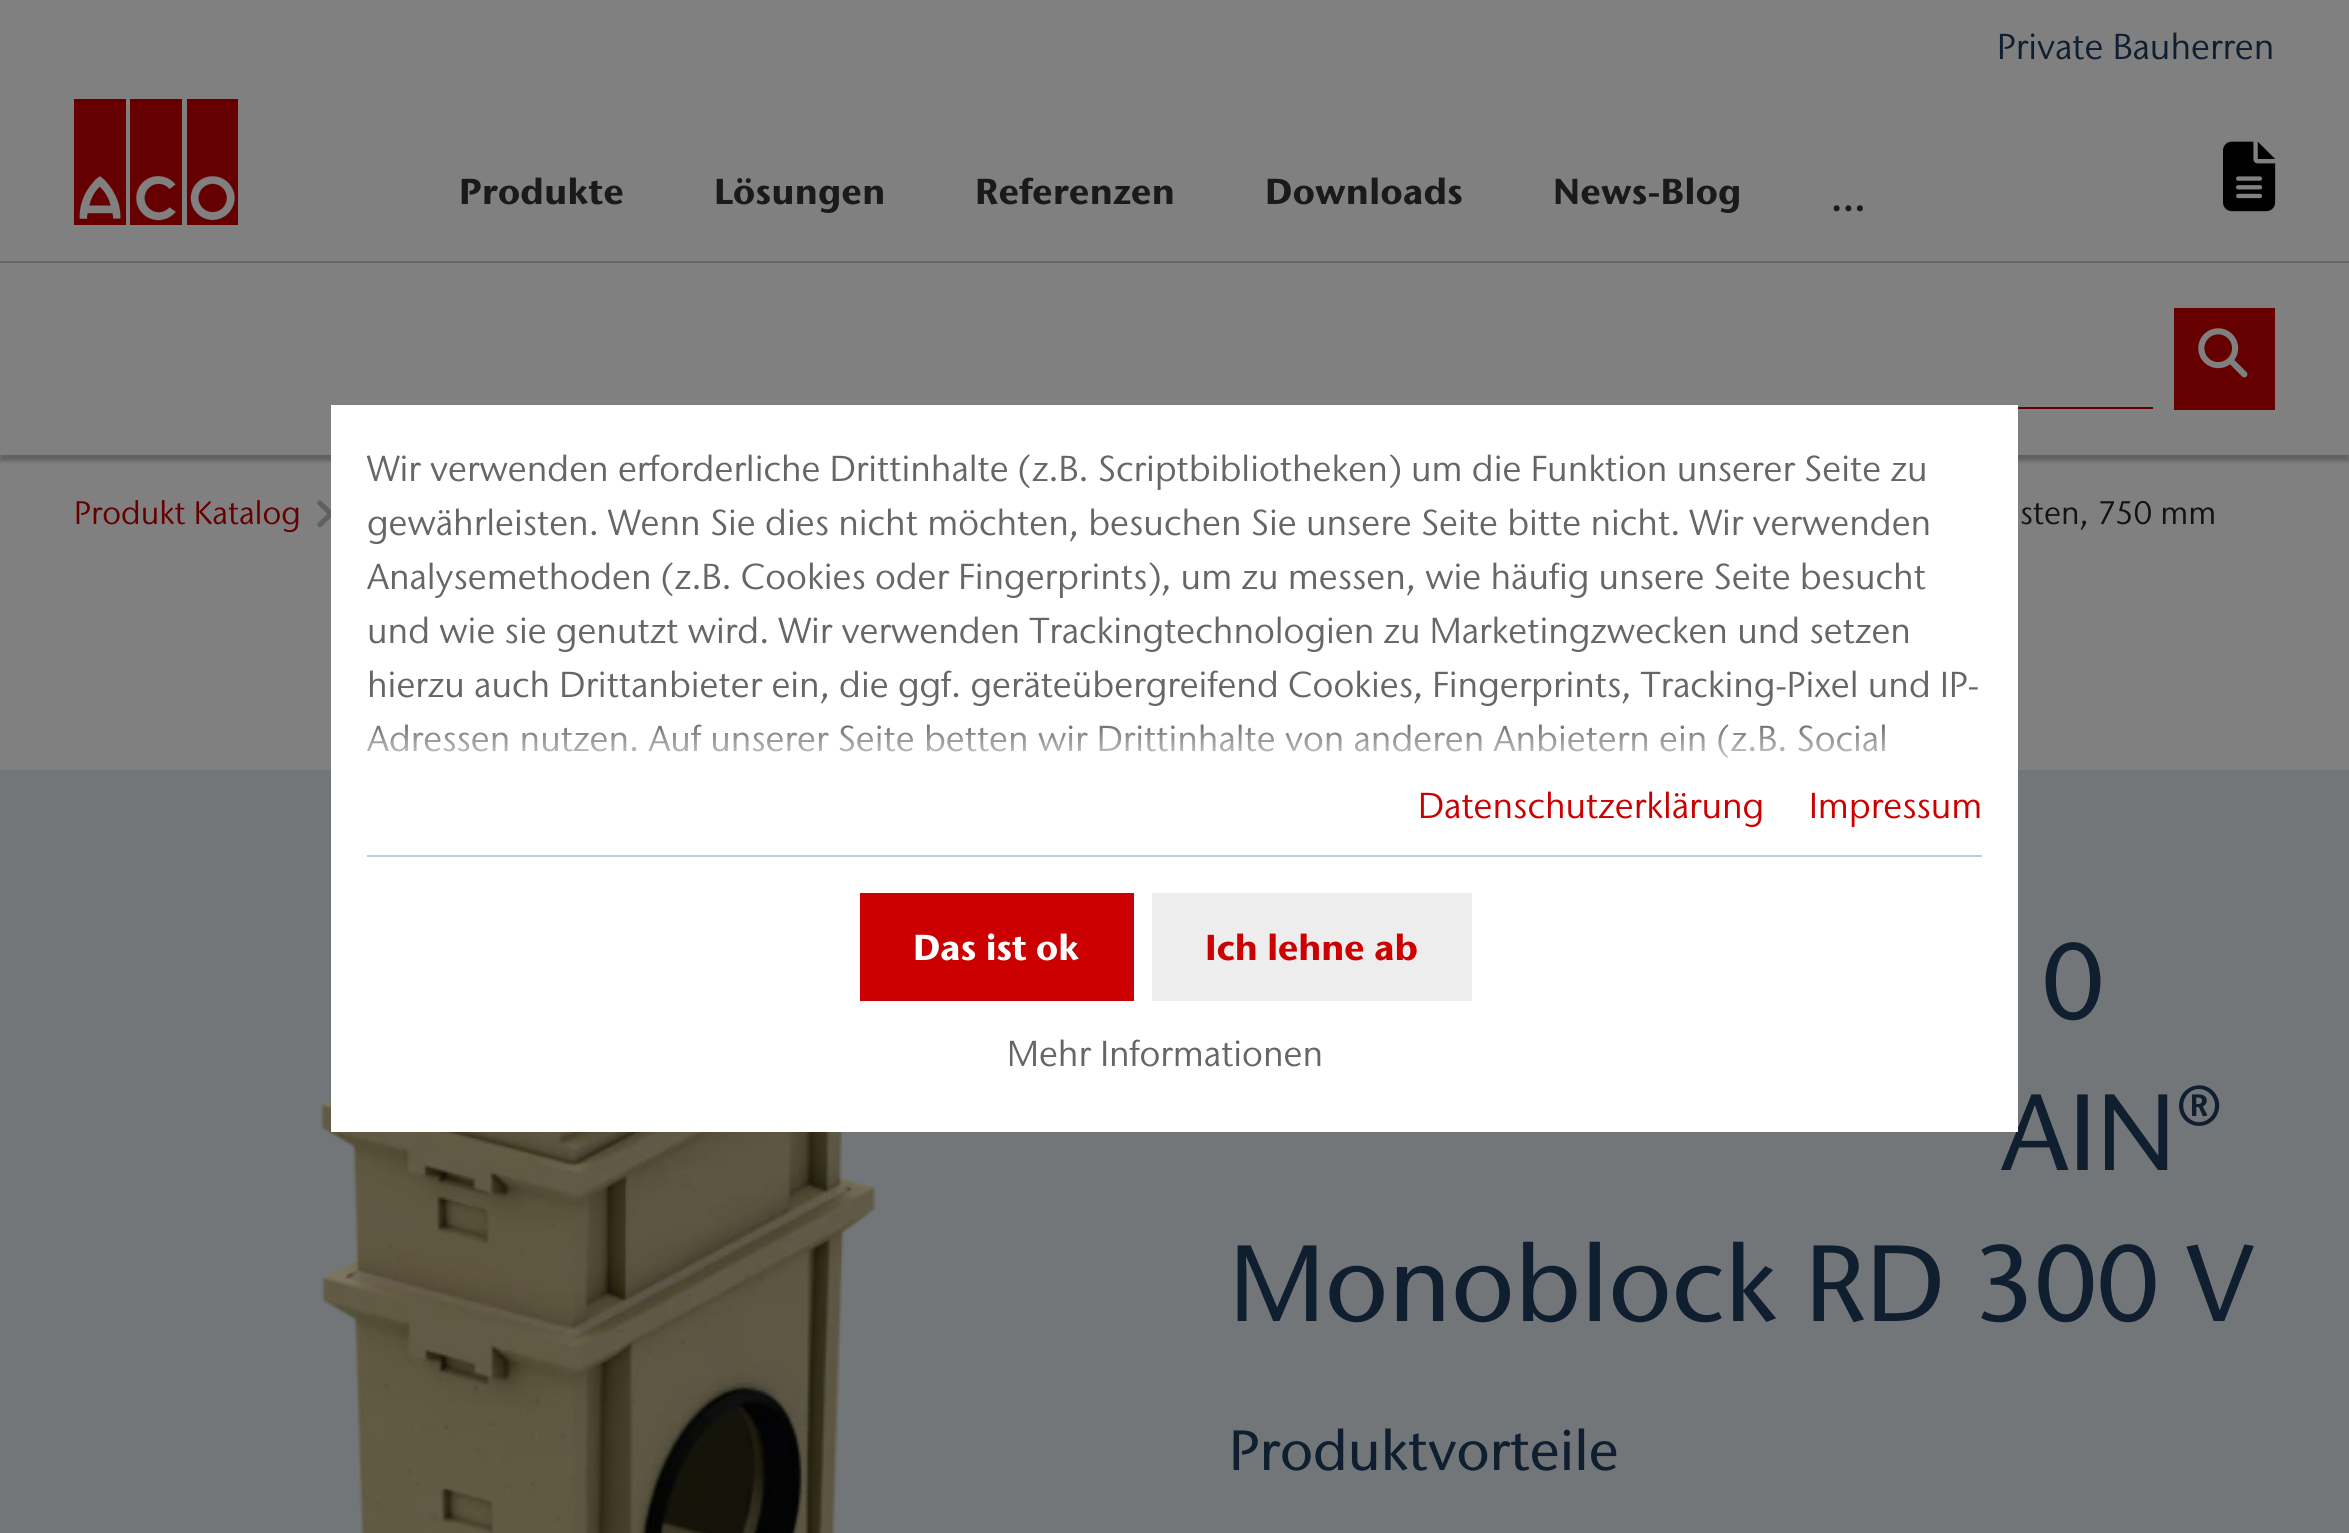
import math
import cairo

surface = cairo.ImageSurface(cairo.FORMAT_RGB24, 2349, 1533)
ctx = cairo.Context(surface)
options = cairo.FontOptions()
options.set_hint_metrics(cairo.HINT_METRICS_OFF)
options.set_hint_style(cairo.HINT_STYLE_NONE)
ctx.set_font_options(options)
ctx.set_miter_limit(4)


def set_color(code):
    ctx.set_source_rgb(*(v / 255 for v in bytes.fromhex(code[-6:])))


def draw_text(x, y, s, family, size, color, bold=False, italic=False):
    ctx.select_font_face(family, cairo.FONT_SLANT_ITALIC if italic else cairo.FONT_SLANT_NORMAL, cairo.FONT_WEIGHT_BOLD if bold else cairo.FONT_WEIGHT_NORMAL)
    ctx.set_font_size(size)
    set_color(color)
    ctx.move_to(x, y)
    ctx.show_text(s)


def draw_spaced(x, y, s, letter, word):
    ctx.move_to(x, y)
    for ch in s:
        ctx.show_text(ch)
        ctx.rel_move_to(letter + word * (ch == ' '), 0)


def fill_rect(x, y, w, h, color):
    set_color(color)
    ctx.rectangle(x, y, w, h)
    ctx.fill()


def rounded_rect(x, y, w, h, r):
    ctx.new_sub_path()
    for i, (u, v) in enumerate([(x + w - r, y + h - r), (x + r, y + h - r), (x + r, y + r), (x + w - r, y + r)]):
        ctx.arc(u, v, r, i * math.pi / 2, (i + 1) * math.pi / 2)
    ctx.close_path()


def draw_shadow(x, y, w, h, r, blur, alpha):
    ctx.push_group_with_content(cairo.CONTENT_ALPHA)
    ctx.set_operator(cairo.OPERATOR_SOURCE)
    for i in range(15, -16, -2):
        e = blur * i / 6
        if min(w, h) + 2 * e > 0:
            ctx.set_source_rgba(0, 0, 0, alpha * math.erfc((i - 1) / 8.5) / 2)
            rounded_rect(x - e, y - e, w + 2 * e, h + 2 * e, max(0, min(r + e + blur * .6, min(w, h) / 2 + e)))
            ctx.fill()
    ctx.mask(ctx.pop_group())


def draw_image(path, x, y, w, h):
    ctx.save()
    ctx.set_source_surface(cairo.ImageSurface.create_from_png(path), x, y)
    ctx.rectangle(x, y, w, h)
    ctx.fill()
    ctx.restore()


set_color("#808080")
ctx.paint()
draw_text(1997, 59, "Private Bauherren", "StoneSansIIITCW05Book", 36, "#0f1f2f")
draw_image("assets/img1.png", 74, 99, 164, 126)
ctx.select_font_face("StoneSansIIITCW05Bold", cairo.FONT_SLANT_NORMAL, cairo.FONT_WEIGHT_BOLD)
set_color("#1a1a1a")
draw_spaced(459, 204, "Produkte", 0.4, 0)
draw_spaced(714, 204, "Lösungen", 0.4, 0)
draw_spaced(975, 204, "Referenzen", 0.4, 0)
draw_spaced(1265, 204, "Downloads", 0.4, 0)
draw_spaced(1553, 204, "News-Blog", 0.4, 0)
draw_spaced(1831, 211, "...", 0.4, 0)
draw_image("assets/img2.png", 2223, 141, 53, 71)
set_color("#000000")
draw_shadow(0, 268, 2349, 193, 0, 2, 0.25)
fill_rect(0, 265, 2349, 190, "#808080")
fill_rect(0, 261, 2349, 2, "#5e6870")
fill_rect(2018, 407, 135, 2, "#660000")
fill_rect(2174, 308, 101, 102, "#660000")
draw_image("assets/img3.png", 2198, 328, 50, 50)
draw_text(74, 524, "Produkt Katalog", "StoneSansIIITCW05Book", 32.5, "#660000")
draw_image("assets/img4.png", 317, 500, 14, 28)
draw_text(2020, 524, "sten, 750 mm", "StoneSansIIITCW05Book", 32.5, "#111315")
fill_rect(0, 770, 2349, 763, "#727678")
draw_image("assets/img5.png", 321, 1098, 555, 435)
draw_text(2042, 1019, "0", "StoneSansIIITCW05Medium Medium", 108, "#0f1f2f")
draw_text(2001, 1170, "AIN®", "StoneSansIIITCW05Medium Medium", 108, "#0f1f2f")
draw_text(1229, 1321, "Monoblock RD 300 V", "StoneSansIIITCW05Medium Medium", 108, "#0f1f2f")
draw_text(1229, 1470, "Produktvorteile", "StoneSansIIITCW05Medium Medium", 56.5, "#0f1f2f")
fill_rect(331, 405, 1687, 727, "#ffffff")
draw_text(367, 481, "Wir verwenden erforderliche Drittinhalte (z.B. Scriptbibliotheken) um die Funktion unserer Seite zu", "StoneSansIIITCW05Book", 36, "#666666")
draw_text(367, 535, "gewährleisten. Wenn Sie dies nicht möchten, besuchen Sie unsere Seite bitte nicht. Wir verwenden", "StoneSansIIITCW05Book", 36, "#666666")
draw_text(367, 589, "Analysemethoden (z.B. Cookies oder Fingerprints), um zu messen, wie häufig unsere Seite besucht", "StoneSansIIITCW05Book", 36, "#666666")
draw_text(367, 643, "und wie sie genutzt wird. Wir verwenden Trackingtechnologien zu Marketingzwecken und setzen", "StoneSansIIITCW05Book", 36, "#666666")
draw_text(367, 697, "hierzu auch Drittanbieter ein, die ggf. geräteübergreifend Cookies, Fingerprints, Tracking-Pixel und IP-", "StoneSansIIITCW05Book", 36, "#666666")
draw_text(367, 751, "Adressen nutzen. Auf unserer Seite betten wir Drittinhalte von anderen Anbietern ein (z.B. Social", "StoneSansIIITCW05Book", 36, "#666666")
gradient = cairo.LinearGradient(1175, 721, 1175, 778)
gradient.add_color_stop_rgba(0, 1, 1, 1, 0)
gradient.add_color_stop_rgba(1, 1, 1, 1, 1)
ctx.set_source(gradient)
ctx.rectangle(367, 724, 1518, 34)
ctx.fill()
fill_rect(367, 855, 1615, 2, "#bccfdf")
draw_text(1418, 818, "Datenschutzerklärung", "StoneSansIIITCW05Book", 36, "#cc0000")
draw_text(1809, 818, "Impressum", "StoneSansIIITCW05Book", 36, "#cc0000")
fill_rect(860, 893, 274, 108, "#cc0000")
draw_text(913, 960, "Das ist ok", "StoneSansIIITCW05Bold", 36, "#ffffff", bold=True)
fill_rect(1152, 893, 320, 108, "#ededed")
draw_text(1205, 960, "Ich lehne ab", "StoneSansIIITCW05Bold", 36, "#cc0000", bold=True)
draw_text(1007, 1066, "Mehr Informationen", "StoneSansIIITCW05Book", 36, "#666666")
surface.write_to_png("output.png")
